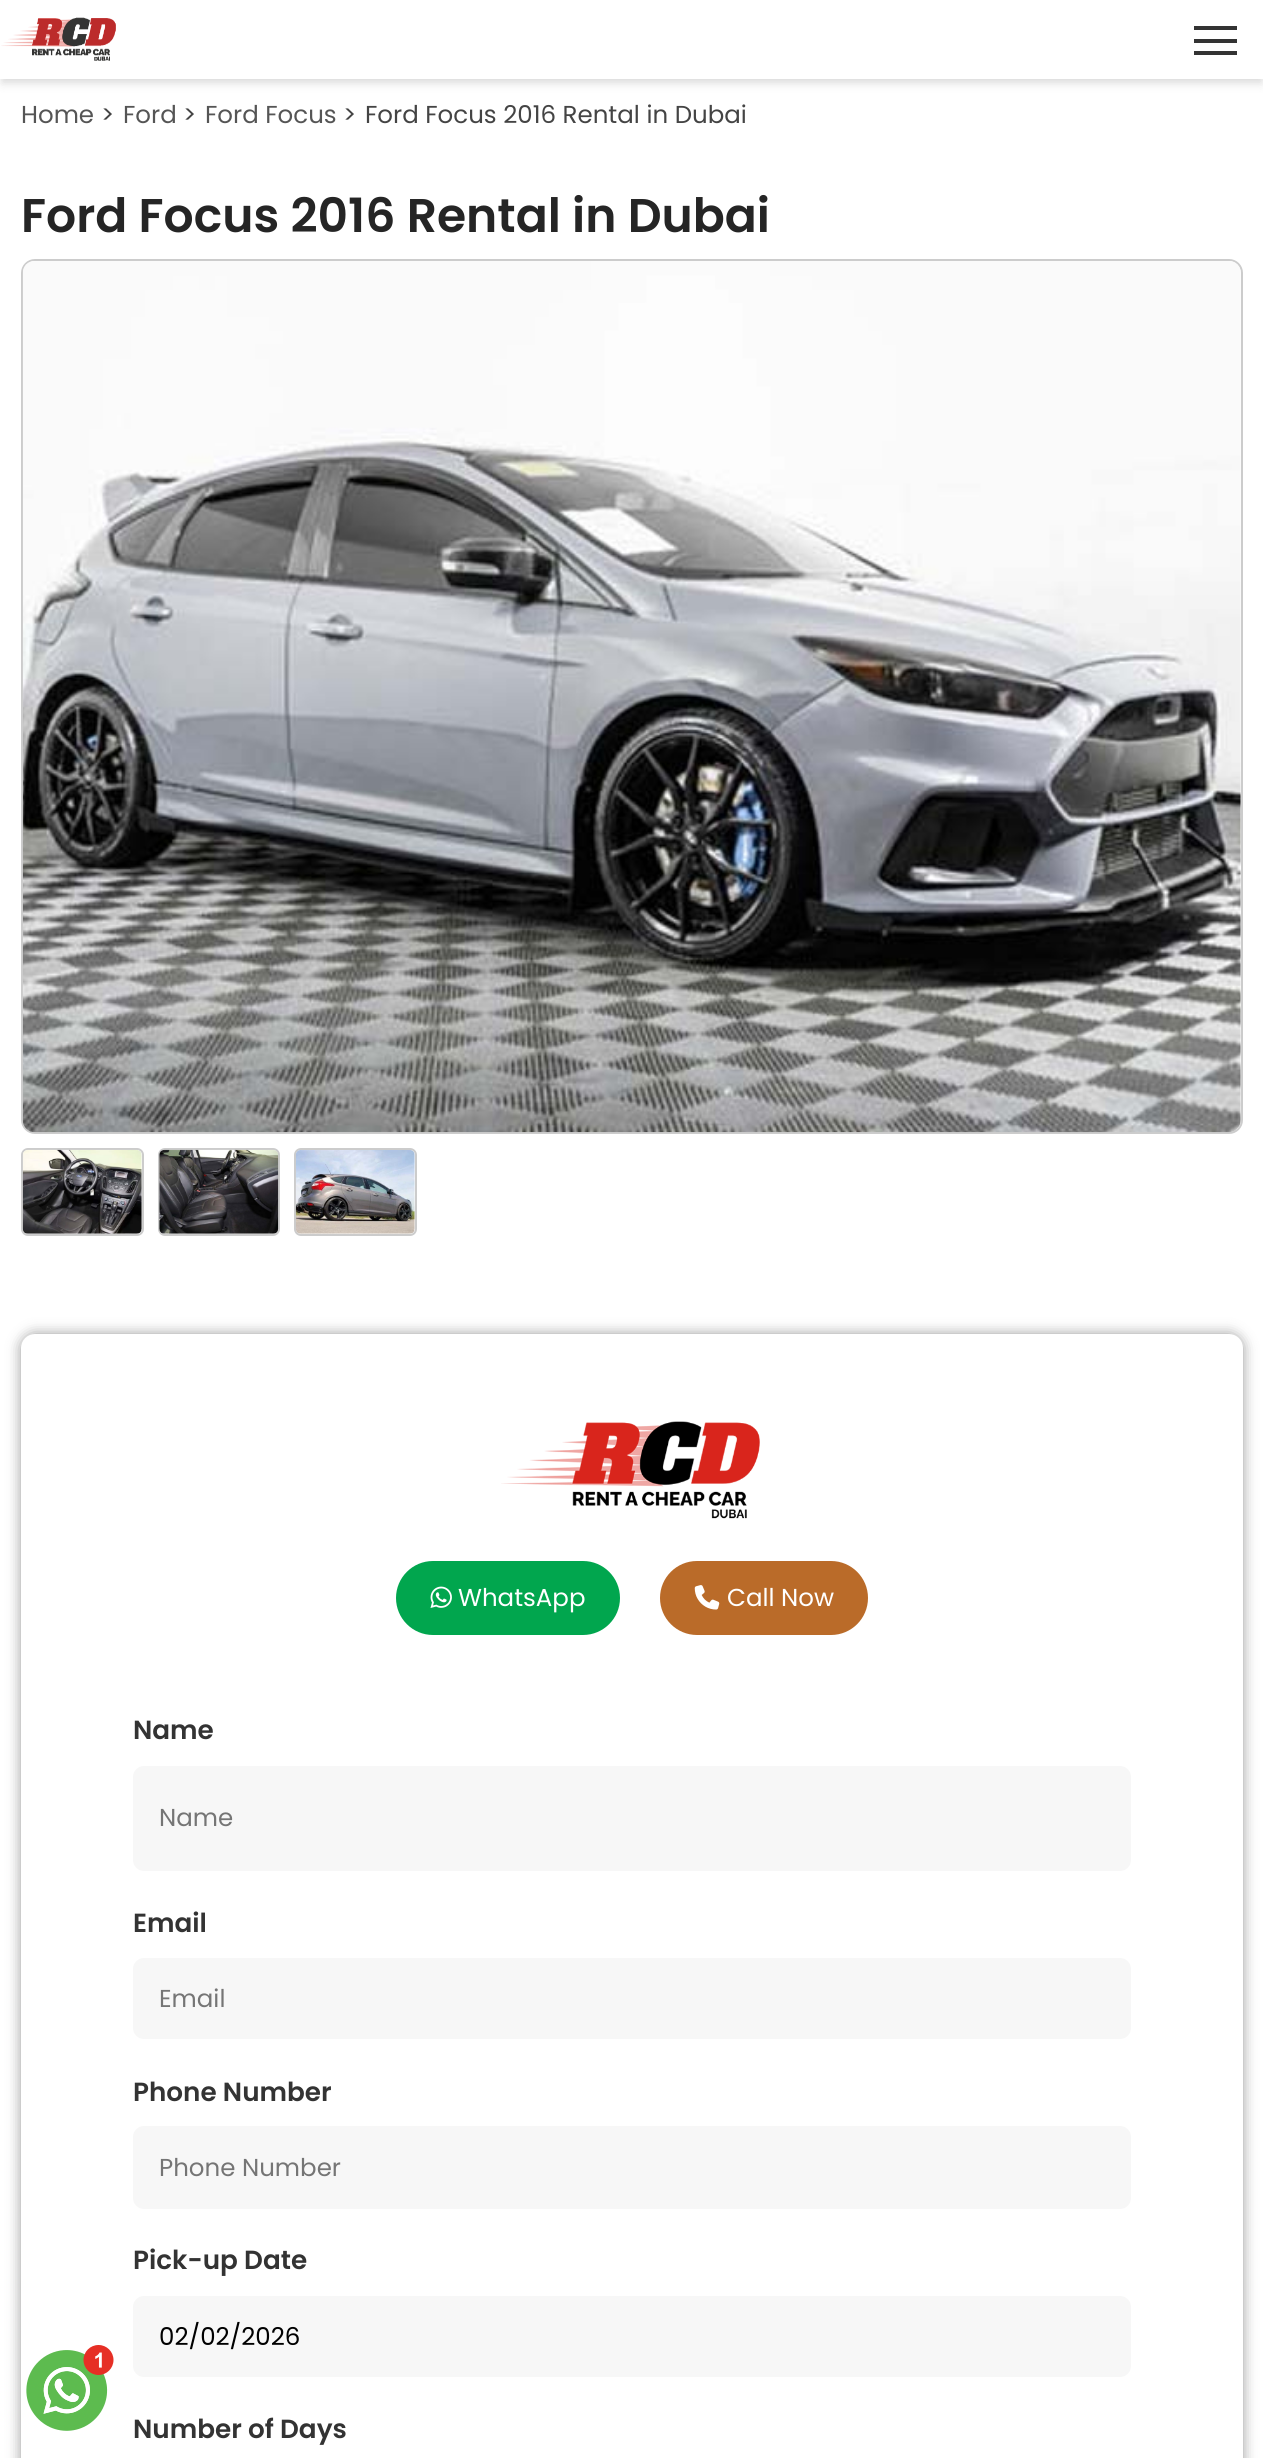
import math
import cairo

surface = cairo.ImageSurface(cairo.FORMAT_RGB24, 1263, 2458)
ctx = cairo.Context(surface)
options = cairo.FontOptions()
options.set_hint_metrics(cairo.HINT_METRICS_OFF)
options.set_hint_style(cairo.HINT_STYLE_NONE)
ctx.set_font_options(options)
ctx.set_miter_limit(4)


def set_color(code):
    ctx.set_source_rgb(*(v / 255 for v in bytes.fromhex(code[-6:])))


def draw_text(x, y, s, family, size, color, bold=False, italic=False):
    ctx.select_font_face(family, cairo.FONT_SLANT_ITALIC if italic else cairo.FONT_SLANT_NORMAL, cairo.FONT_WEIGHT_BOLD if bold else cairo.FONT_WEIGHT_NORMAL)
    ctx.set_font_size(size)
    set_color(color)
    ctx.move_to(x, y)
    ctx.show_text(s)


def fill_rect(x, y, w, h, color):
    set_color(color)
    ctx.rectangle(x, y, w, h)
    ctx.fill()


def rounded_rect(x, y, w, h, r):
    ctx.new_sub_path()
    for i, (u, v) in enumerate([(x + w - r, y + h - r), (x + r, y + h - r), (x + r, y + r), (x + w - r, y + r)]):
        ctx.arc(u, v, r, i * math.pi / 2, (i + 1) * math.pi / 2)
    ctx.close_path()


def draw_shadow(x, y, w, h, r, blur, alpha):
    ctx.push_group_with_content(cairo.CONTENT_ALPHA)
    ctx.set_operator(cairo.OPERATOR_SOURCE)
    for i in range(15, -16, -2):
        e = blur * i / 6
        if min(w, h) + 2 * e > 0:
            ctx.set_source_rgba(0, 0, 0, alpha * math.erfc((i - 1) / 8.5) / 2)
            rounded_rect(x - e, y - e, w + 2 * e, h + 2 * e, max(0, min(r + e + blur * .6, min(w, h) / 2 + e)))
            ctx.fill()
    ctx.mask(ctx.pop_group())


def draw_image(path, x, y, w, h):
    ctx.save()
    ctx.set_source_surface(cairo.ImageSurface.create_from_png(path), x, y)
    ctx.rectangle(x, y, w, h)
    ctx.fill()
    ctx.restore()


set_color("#ffffff")
ctx.paint()
set_color("#000000")
draw_shadow(2, 5, 1260, 76, 0, 3.5, 0.06)
draw_shadow(2, 9, 1260, 75, 0, 5, 0.1)
fill_rect(0, 0, 1263, 79, "#ffffff")
draw_image("assets/img1.png", 1, 17, 115, 44)
fill_rect(1194, 26, 43, 4, "#333333")
fill_rect(1194, 39, 43, 4, "#333333")
fill_rect(1194, 51, 43, 4, "#333333")
draw_text(21, 123, "Home", "Poppins", 24.5, "#555555")
draw_text(101, 123, ">", "Poppins", 24.5, "#444444")
draw_text(123, 123, "Ford", "Poppins", 24.5, "#555555")
draw_text(183, 123, ">", "Poppins", 24.5, "#444444")
draw_text(205, 123, "Ford Focus", "Poppins", 24.5, "#555555")
draw_text(343, 123, ">", "Poppins", 24.5, "#444444")
draw_text(365, 123, "Ford Focus 2016 Rental in Dubai", "Poppins", 24.5, "#444444")
draw_text(21, 232, "Ford Focus 2016 Rental in Dubai", "Poppins SemiBold", 47.25, "#252525")
rounded_rect(22, 260, 1220, 873, 13)
set_color("#cccccc")
ctx.stroke()
draw_image("assets/img2.png", 22, 261, 1219, 872)
rounded_rect(22, 1149, 121, 86, 6)
ctx.stroke()
draw_image("assets/img3.png", 22, 1149, 120, 85)
rounded_rect(159, 1149, 120, 86, 6)
ctx.stroke()
draw_image("assets/img4.png", 159, 1149, 120, 85)
rounded_rect(295, 1149, 121, 86, 6)
ctx.stroke()
draw_image("assets/img5.png", 295, 1150, 120, 84)
set_color("#000000")
draw_shadow(21, 1334, 1222, 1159, 14, 7, 0.4)
set_color("#ffffff")
rounded_rect(21, 1334, 1222, 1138, 14)
ctx.fill()
draw_image("assets/img6.png", 501, 1421, 259, 98)
set_color("#01a64e")
rounded_rect(396, 1561, 224, 74, 37)
ctx.fill()
draw_image("assets/img7.png", 430, 1586, 22, 22)
draw_text(458, 1606, "WhatsApp", "Poppins", 24.5, "#ffffff")
set_color("#ba6b29")
rounded_rect(660, 1561, 208, 74, 37)
ctx.fill()
draw_image("assets/img8.png", 694, 1585, 26, 25)
draw_text(727, 1606, "Call Now", "Poppins", 24.5, "#ffffff")
draw_text(133, 1739, "Name", "Poppins SemiBold", 26.25, "#333333")
set_color("#f7f7f7")
rounded_rect(133, 1766, 998, 105, 11)
ctx.fill()
draw_text(159, 1826, "Name", "Poppins", 24.5, "#757575")
draw_text(133, 1932, "Email", "Poppins SemiBold", 26.25, "#333333")
set_color("#f7f7f7")
rounded_rect(133, 1958, 998, 81, 11)
ctx.fill()
draw_text(159, 2007, "Email", "Poppins", 24.5, "#757575")
draw_text(133, 2101, "Phone Number", "Poppins SemiBold", 26.25, "#333333")
set_color("#f7f7f7")
rounded_rect(133, 2126, 998, 83, 11)
ctx.fill()
draw_text(159, 2176, "Phone Number", "Poppins", 24.5, "#757575")
draw_text(133, 2269, "Pick-up Date", "Poppins SemiBold", 26.25, "#333333")
set_color("#f7f7f7")
rounded_rect(133, 2296, 998, 81, 11)
ctx.fill()
draw_text(159, 2345, "02/02/2026", "Poppins", 24.5, "#000000")
draw_text(133, 2438, "Number of Days", "Poppins SemiBold", 26.25, "#333333")
draw_image("assets/img9.png", 26, 2345, 88, 86)
surface.write_to_png("output.png")
